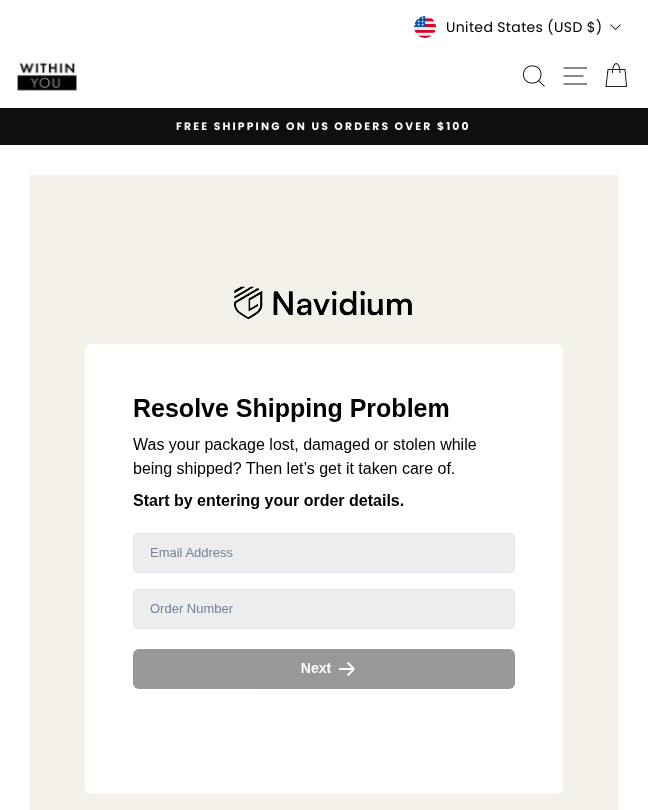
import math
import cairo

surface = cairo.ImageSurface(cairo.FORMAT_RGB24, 648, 810)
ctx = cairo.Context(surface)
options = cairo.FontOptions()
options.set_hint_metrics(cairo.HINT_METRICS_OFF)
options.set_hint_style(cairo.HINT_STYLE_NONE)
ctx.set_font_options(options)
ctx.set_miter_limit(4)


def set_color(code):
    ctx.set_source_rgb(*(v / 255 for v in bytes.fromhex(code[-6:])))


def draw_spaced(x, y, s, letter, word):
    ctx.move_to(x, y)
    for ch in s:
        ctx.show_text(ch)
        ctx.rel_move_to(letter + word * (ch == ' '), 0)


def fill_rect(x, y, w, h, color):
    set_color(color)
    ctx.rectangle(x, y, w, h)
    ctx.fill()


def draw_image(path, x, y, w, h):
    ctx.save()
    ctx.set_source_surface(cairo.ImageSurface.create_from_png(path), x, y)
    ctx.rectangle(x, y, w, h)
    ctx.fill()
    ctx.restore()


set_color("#ffffff")
ctx.paint()
draw_image("assets/img1.png", 414, 16, 22, 22)
ctx.select_font_face("Poppins")
ctx.set_font_size(14)
set_color("#000000")
draw_spaced(446, 32, "United States (USD $)", 0.35, 0)
ctx.new_path()
ctx.move_to(610.5, 24.5)
ctx.line_to(615.5, 29.5)
ctx.line_to(620.5, 24.5)
ctx.set_line_width(0.8)
ctx.stroke()
draw_image("assets/img2.png", 17, 61, 60, 30)
ctx.new_path()
ctx.move_to(541, 74.5)
ctx.curve_to(541, 86, 523.5, 86, 523.5, 74.5)
ctx.curve_to(523.5, 63, 541, 63, 541, 74.5)
ctx.close_path()
ctx.move_to(544.5, 86.5)
ctx.line_to(538.5, 80.5)
ctx.set_line_width(0.9)
ctx.stroke()
ctx.new_path()
ctx.move_to(563.5, 68)
ctx.line_to(587, 68)
ctx.move_to(563.5, 76)
ctx.line_to(583.5, 76)
ctx.move_to(563.5, 84)
ctx.line_to(587, 84)
ctx.move_to(612.5, 73)
ctx.curve_to(612.5, 60.5, 620, 60.5, 620, 73)
ctx.stroke()
ctx.new_path()
ctx.move_to(608, 69.5)
ctx.line_to(625, 69.5)
ctx.line_to(626.5, 86.5)
ctx.line_to(606, 86.5)
ctx.close_path()
ctx.stroke()
fill_rect(0, 108, 648, 37, "#0f0f0f")
ctx.select_font_face("Poppins", cairo.FONT_SLANT_NORMAL, cairo.FONT_WEIGHT_BOLD)
ctx.set_font_size(10.8)
set_color("#ffffff")
draw_spaced(176, 130, "FREE SHIPPING ON US ORDERS OVER $100", 2.15, 0)
draw_image("assets/img3.png", 30, 175, 588, 635)
surface.write_to_png("output.png")
